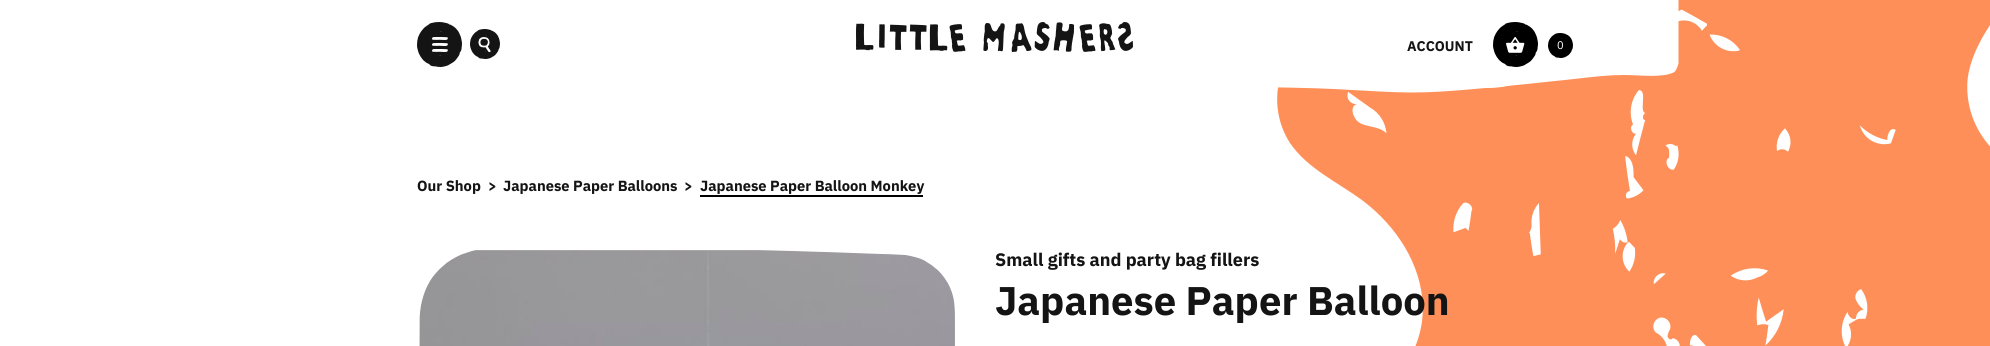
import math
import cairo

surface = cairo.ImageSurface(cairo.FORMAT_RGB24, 1990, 346)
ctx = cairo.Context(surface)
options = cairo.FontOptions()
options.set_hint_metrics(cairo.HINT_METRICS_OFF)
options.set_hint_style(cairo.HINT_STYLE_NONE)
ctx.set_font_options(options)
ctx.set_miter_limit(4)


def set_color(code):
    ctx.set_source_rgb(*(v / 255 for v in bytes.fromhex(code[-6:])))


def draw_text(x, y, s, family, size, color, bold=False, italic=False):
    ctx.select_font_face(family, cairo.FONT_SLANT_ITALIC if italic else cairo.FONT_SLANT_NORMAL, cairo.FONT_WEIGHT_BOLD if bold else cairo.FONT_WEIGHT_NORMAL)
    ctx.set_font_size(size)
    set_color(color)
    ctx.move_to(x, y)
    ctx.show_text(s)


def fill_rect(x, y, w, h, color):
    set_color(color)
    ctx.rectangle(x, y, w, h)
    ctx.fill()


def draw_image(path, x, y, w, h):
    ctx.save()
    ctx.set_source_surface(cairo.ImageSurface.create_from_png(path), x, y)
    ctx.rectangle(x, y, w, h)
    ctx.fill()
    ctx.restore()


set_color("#ffffff")
ctx.paint()
draw_image("assets/img1.png", 1277, 0, 713, 346)
draw_image("assets/img2.png", 1278, 0, 401, 93)
draw_image("assets/img3.png", 417, 22, 45, 45)
draw_image("assets/img4.png", 470, 29, 30, 30)
draw_image("assets/img5.png", 856, 22, 277, 30)
draw_text(1407, 51, "ACCOUNT", "IBM Plex Sans", 14, "#141414", bold=True)
draw_image("assets/img6.png", 1493, 22, 45, 45)
draw_image("assets/img7.png", 1548, 33, 25, 25)
draw_text(1557, 49, "0", "IBM Plex Sans", 11, "#ffffff")
draw_text(417, 191, "Our Shop", "IBM Plex Sans", 14.7, "#141414", bold=True)
draw_text(488, 191, ">", "IBM Plex Sans", 14.7, "#141414", bold=True)
draw_text(503, 191, "Japanese Paper Balloons", "IBM Plex Sans", 14.7, "#141414", bold=True)
draw_text(684, 191, ">", "IBM Plex Sans", 14.7, "#141414", bold=True)
draw_text(700, 191, "Japanese Paper Balloon Monkey", "IBM Plex Sans", 14.7, "#141414", bold=True)
fill_rect(700, 195, 223, 2, "#000000")
draw_image("assets/img8.png", 419, 250, 536, 96)
draw_text(995, 266, "Small gifts and party bag fillers", "IBM Plex Sans", 18, "#141414", bold=True)
draw_text(995, 315, "Japanese Paper Balloon", "IBM Plex Sans", 40, "#141414", bold=True)
surface.write_to_png("output.png")
